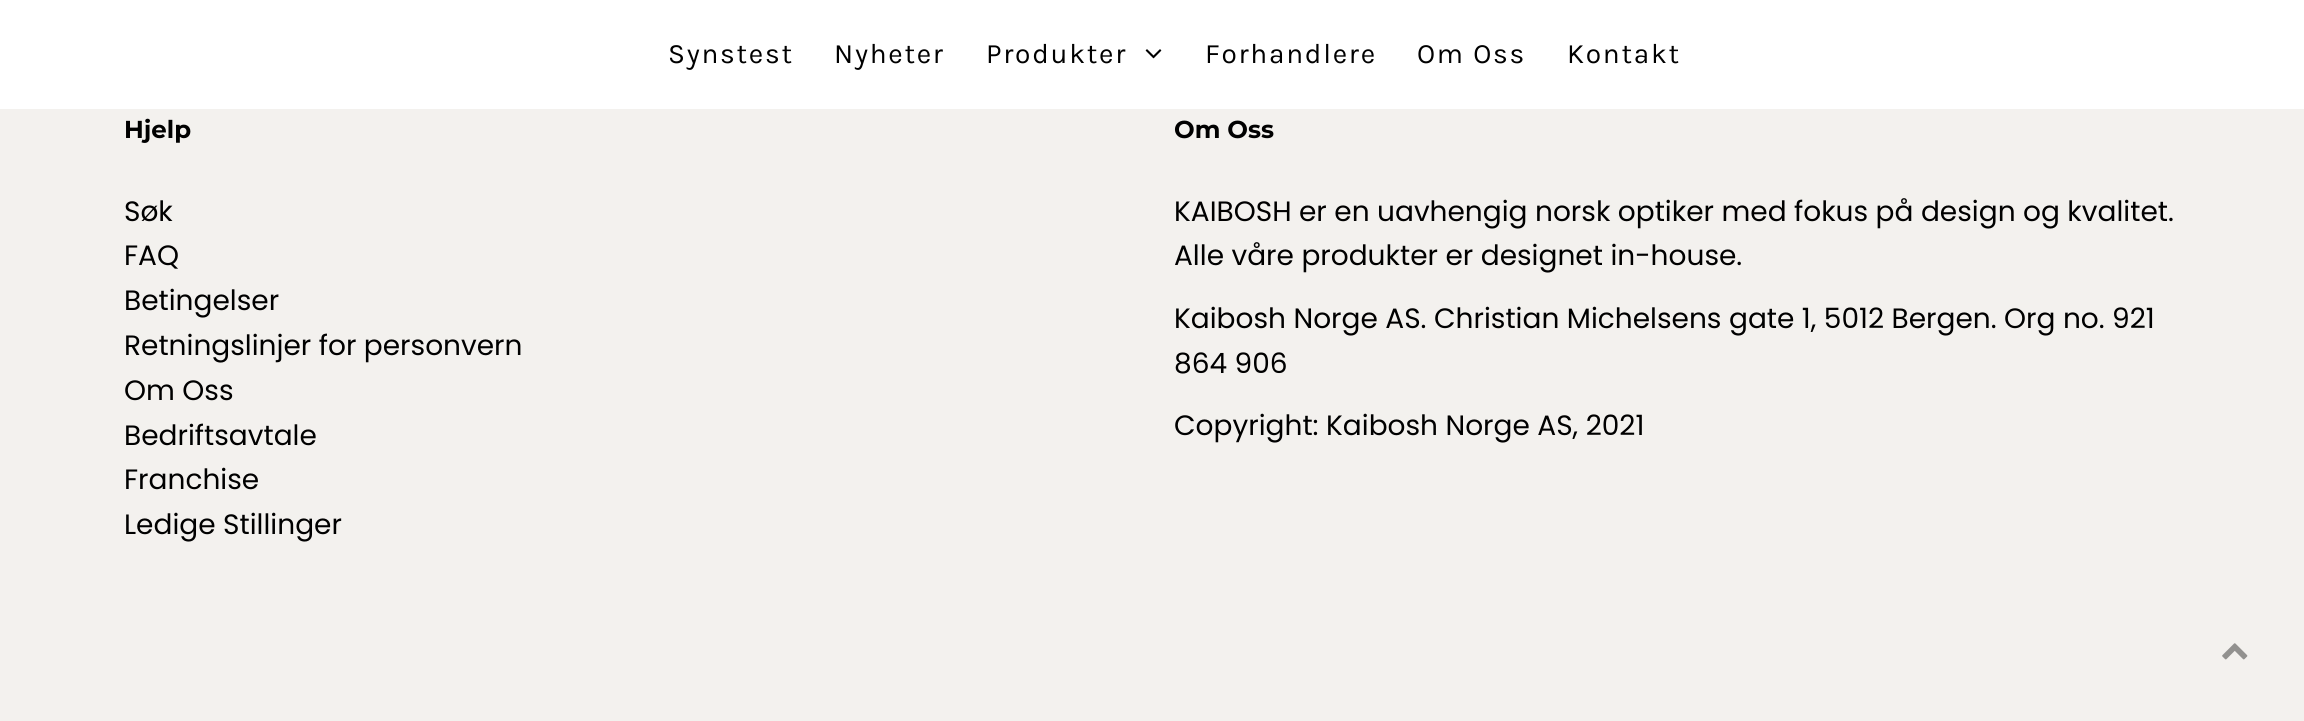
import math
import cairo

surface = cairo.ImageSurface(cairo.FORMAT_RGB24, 2304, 721)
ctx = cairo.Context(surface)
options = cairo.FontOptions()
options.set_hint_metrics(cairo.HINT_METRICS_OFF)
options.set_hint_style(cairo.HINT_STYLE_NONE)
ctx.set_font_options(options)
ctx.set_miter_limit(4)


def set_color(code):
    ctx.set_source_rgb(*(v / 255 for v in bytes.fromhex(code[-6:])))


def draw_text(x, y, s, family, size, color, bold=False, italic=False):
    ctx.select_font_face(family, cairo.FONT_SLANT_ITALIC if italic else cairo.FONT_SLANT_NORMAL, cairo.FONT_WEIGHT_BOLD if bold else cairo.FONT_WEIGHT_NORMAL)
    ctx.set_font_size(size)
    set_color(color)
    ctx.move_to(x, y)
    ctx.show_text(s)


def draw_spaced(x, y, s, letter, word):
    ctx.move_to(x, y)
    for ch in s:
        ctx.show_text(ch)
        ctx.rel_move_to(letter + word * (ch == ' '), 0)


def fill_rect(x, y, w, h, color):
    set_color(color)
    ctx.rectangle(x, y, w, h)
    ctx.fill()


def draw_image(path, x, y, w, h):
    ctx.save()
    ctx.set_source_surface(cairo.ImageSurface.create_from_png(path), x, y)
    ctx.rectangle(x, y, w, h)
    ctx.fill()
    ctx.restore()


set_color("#f3f1ee")
ctx.paint()
fill_rect(0, 0, 2304, 109, "#ffffff")
ctx.select_font_face("Karla")
ctx.set_font_size(28)
set_color("#000000")
draw_spaced(668, 63, "Synstest", 1.75, 0)
draw_spaced(834, 63, "Nyheter", 1.75, 0)
draw_spaced(986, 63, "Produkter", 1.75, 0)
draw_image("assets/img1.png", 1145, 49, 17, 10)
draw_spaced(1205, 63, "Forhandlere", 1.75, 0)
draw_spaced(1417, 63, "Om Oss", 1.75, 0)
draw_spaced(1567, 63, "Kontakt", 1.75, 0)
draw_text(124, 138, "Hjelp", "Montserrat Thin", 24.5, "#000000")
draw_text(124, 221, "Søk", "Poppins", 28, "#000000")
draw_text(124, 265, "FAQ", "Poppins", 28, "#000000")
draw_text(124, 310, "Betingelser", "Poppins", 28, "#000000")
draw_text(124, 355, "Retningslinjer for personvern", "Poppins", 28, "#000000")
draw_text(124, 400, "Om Oss", "Poppins", 28, "#000000")
draw_text(124, 445, "Bedriftsavtale", "Poppins", 28, "#000000")
draw_text(124, 489, "Franchise", "Poppins", 28, "#000000")
draw_text(124, 534, "Ledige Stillinger", "Poppins", 28, "#000000")
draw_text(1174, 138, "Om Oss", "Montserrat Thin", 24.5, "#000000")
draw_text(1174, 221, "KAIBOSH er en uavhengig norsk optiker med fokus på design og kvalitet.", "Poppins", 28, "#000000")
draw_text(1174, 265, "Alle våre produkter er designet in-house.", "Poppins", 28, "#000000")
draw_text(1174, 328, "Kaibosh Norge AS. Christian Michelsens gate 1, 5012 Bergen. Org no. 921", "Poppins", 28, "#000000")
draw_text(1174, 373, "864 906", "Poppins", 28, "#000000")
draw_text(1174, 435, "Copyright: Kaibosh Norge AS, 2021", "Poppins", 28, "#000000")
draw_image("assets/img2.png", 2222, 643, 26, 17)
surface.write_to_png("output.png")
